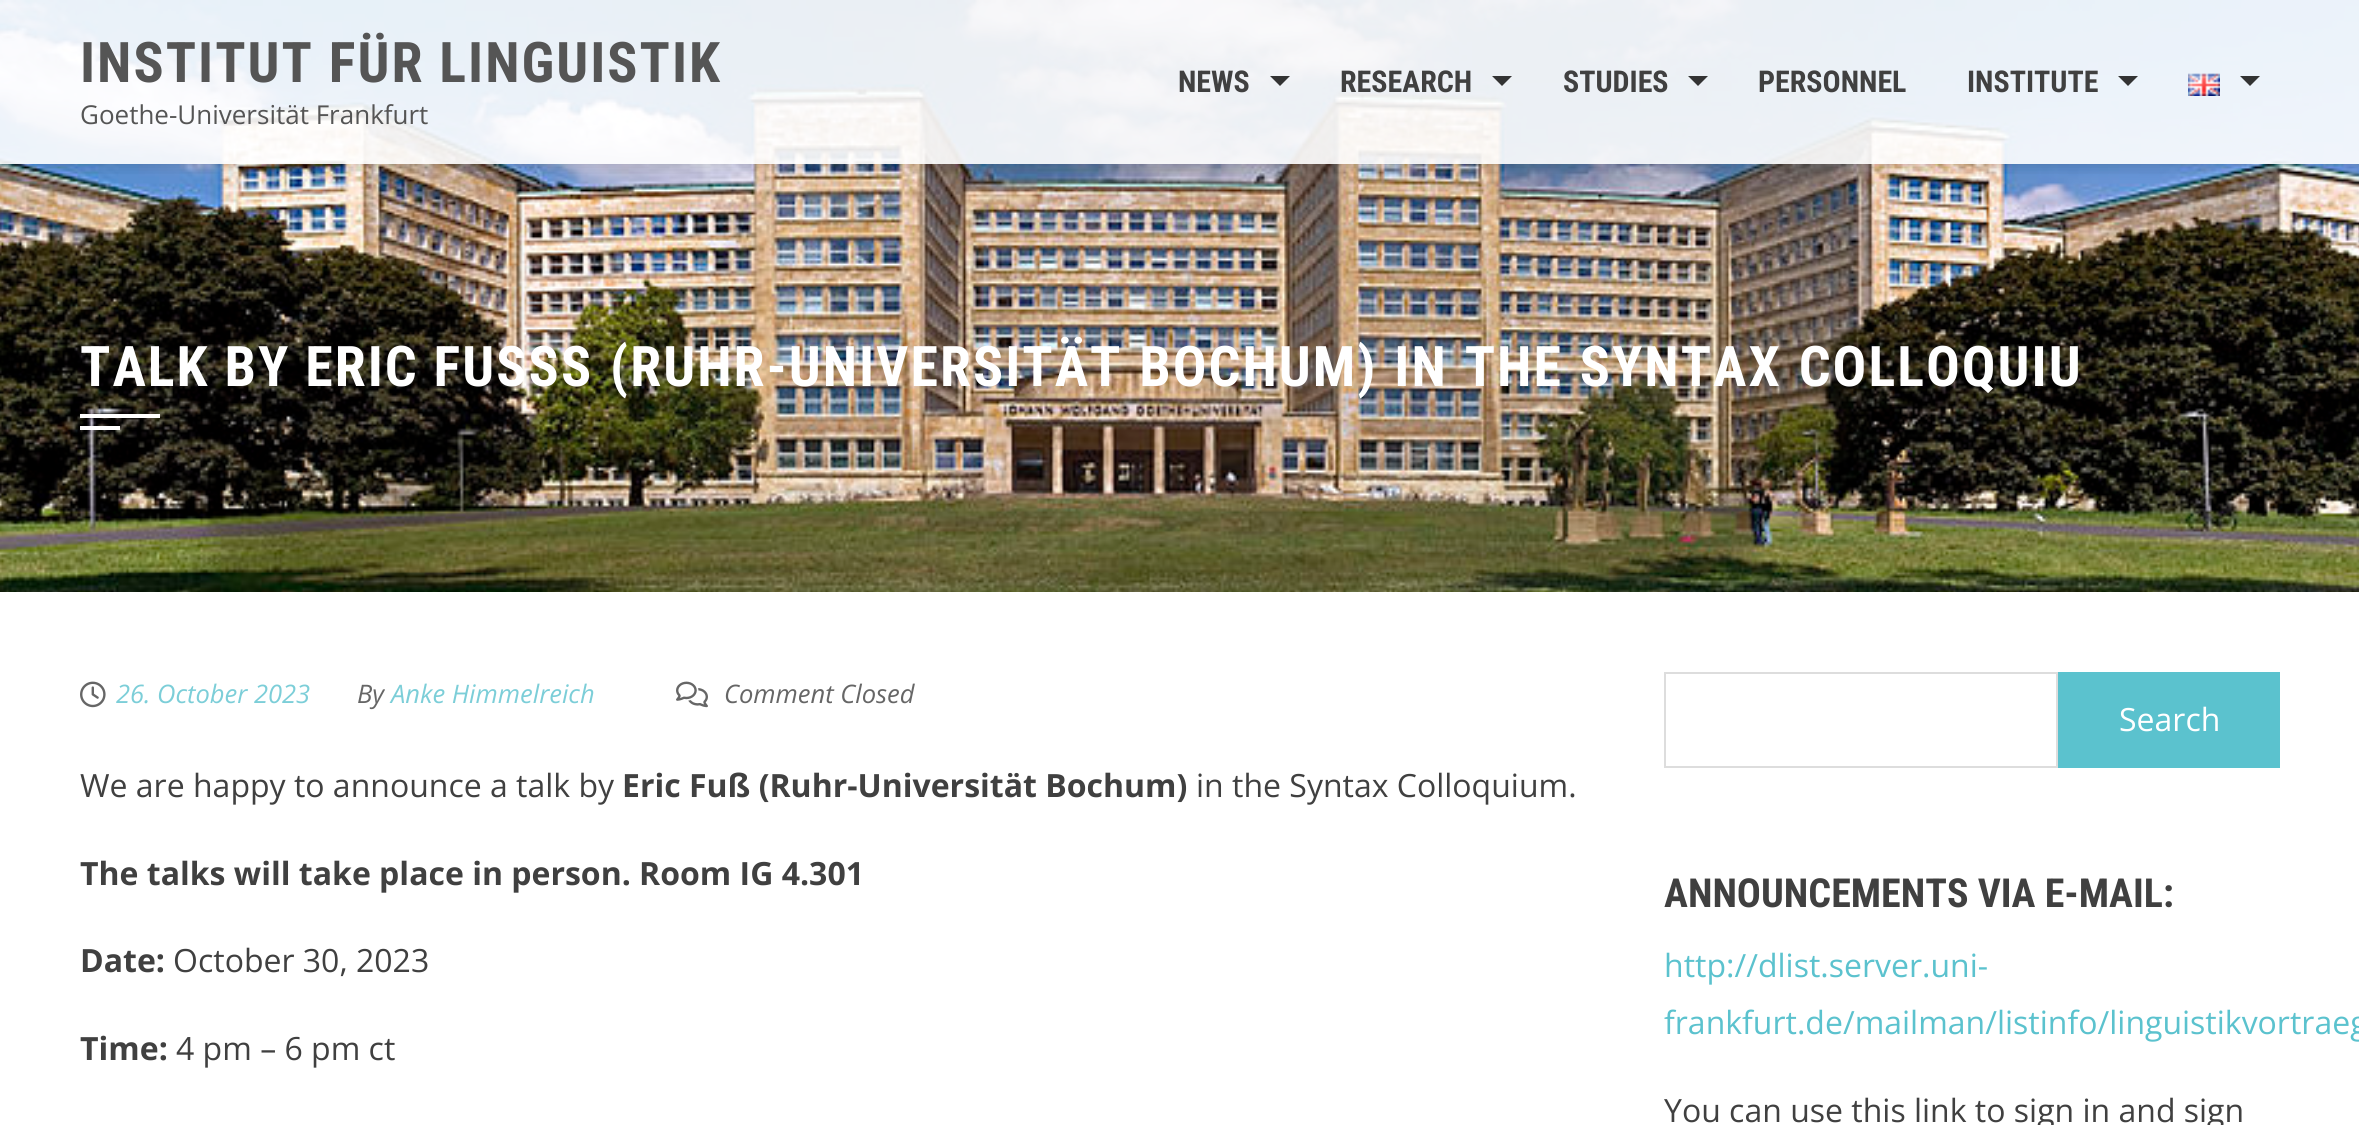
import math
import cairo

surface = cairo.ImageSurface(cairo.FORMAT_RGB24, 2359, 1125)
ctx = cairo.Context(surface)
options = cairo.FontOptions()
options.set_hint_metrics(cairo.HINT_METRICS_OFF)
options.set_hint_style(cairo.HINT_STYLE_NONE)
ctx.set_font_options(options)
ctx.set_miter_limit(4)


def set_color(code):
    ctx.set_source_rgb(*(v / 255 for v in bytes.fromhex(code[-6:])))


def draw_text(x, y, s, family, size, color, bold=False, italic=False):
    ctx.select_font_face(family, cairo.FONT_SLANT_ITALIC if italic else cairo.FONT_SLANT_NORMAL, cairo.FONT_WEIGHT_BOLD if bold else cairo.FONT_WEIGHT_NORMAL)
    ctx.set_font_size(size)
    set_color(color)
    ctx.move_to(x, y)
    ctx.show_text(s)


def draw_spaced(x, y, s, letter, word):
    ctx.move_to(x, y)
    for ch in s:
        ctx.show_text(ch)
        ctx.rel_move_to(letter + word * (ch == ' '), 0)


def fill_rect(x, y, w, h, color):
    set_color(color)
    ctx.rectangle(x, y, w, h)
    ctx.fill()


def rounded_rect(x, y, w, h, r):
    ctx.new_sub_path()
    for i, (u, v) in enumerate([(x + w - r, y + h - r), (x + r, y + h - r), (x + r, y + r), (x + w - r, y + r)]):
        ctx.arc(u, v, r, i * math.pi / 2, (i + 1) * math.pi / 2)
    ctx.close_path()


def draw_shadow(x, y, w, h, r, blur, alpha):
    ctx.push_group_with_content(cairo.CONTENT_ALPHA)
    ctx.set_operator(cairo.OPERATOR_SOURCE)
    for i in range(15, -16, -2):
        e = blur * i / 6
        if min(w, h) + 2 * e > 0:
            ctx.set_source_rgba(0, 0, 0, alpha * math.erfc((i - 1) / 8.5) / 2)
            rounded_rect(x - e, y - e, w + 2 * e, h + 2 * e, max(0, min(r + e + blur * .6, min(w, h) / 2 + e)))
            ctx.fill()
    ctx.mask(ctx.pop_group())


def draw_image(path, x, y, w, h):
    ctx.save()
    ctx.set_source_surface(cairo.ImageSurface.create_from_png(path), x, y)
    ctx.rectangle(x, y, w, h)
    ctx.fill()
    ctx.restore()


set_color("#ffffff")
ctx.paint()
draw_image("assets/img2.png", 0, 0, 2359, 592)
ctx.save()
ctx.rectangle(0, 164, 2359, 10)
ctx.clip()
set_color("#000000")
draw_shadow(0, 0, 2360, 164, 0, 8, 0.2)
ctx.restore()
ctx.set_source_rgba(1, 1, 1, 0.9)
ctx.rectangle(0, 0, 2359, 164)
ctx.fill()
ctx.select_font_face("Roboto Condensed", cairo.FONT_SLANT_NORMAL, cairo.FONT_WEIGHT_BOLD)
ctx.set_font_size(56)
set_color("#555555")
draw_spaced(80, 82, "INSTITUT FÜR LINGUISTIK", 2, 0)
draw_text(80, 124, "Goethe-Universität Frankfurt", "Open Sans", 26, "#555555")
draw_text(1178, 92, "NEWS", "Roboto Condensed", 30, "#404040", bold=True)
set_color("#333333")
ctx.new_path()
ctx.move_to(1270, 76)
ctx.line_to(1290, 76)
ctx.line_to(1280, 86)
ctx.close_path()
ctx.fill()
draw_text(1340, 92, "RESEARCH", "Roboto Condensed", 30, "#404040", bold=True)
set_color("#333333")
ctx.new_path()
ctx.move_to(1492, 76)
ctx.line_to(1512, 76)
ctx.line_to(1502, 86)
ctx.close_path()
ctx.fill()
draw_text(1563, 92, "STUDIES", "Roboto Condensed", 30, "#404040", bold=True)
set_color("#333333")
ctx.new_path()
ctx.move_to(1688, 76)
ctx.line_to(1708, 76)
ctx.line_to(1698, 86)
ctx.close_path()
ctx.fill()
draw_text(1758, 92, "PERSONNEL", "Roboto Condensed", 30, "#404040", bold=True)
draw_text(1967, 92, "INSTITUTE", "Roboto Condensed", 30, "#404040", bold=True)
set_color("#333333")
ctx.new_path()
ctx.move_to(2118, 76)
ctx.line_to(2138, 76)
ctx.line_to(2128, 86)
ctx.close_path()
ctx.fill()
draw_image("assets/img1.png", 2188, 73, 32, 23)
ctx.new_path()
ctx.move_to(2240, 76)
ctx.line_to(2260, 76)
ctx.line_to(2250, 86)
ctx.close_path()
ctx.fill()
ctx.set_font_size(56)
set_color("#ffffff")
draw_spaced(80, 386, "TALK BY ERIC FUSS", 2, 0)
draw_spaced(561, 386, "S (RUHR-UNIVERSITÄT BOCHUM) IN THE SYNTAX COLLOQUIU", 2, 2)
fill_rect(80, 414, 80, 4, "#ffffff")
fill_rect(80, 426, 40, 4, "#ffffff")
draw_image("assets/img3.png", 80, 681, 26, 27)
draw_text(116, 703, "26. October 2023", "Open Sans", 25.5, "#7cced8", italic=True)
draw_text(357, 703, "By", "Open Sans", 25.5, "#666666", italic=True)
draw_text(391, 703, "Anke Himmelreich", "Open Sans", 25.5, "#7cced8", italic=True)
draw_image("assets/img4.png", 676, 681, 32, 27)
draw_text(724, 703, "Comment Closed", "Open Sans", 25.5, "#666666", italic=True)
draw_text(80, 797, "We are happy to announce a talk by", "Open Sans", 32, "#404040")
draw_text(622, 797, "Eric Fuß (Ruhr-Universität Bochum)", "Open Sans", 32, "#404040", bold=True)
draw_text(1196, 797, "in the Syntax Colloquium.", "Open Sans", 32, "#404040")
draw_text(80, 885, "The talks will take place in person. Room IG 4.301", "Open Sans", 32, "#404040", bold=True)
draw_text(80, 972, "Date:", "Open Sans", 32, "#404040", bold=True)
draw_text(173, 972, "October 30, 2023", "Open Sans", 32, "#404040")
draw_text(80, 1060, "Time:", "Open Sans", 32, "#404040", bold=True)
draw_text(176, 1060, "4 pm – 6 pm ct", "Open Sans", 32, "#404040")
ctx.rectangle(1665, 673, 392, 94)
set_color("#dddddd")
ctx.stroke()
fill_rect(2058, 672, 222, 96, "#5bc2ce")
draw_text(2119, 731, "Search", "Open Sans", 32, "#ffffff")
draw_text(1664, 907, "ANNOUNCEMENTS VIA E-MAIL:", "Roboto Condensed", 40, "#404040", bold=True)
draw_text(1664, 977, "http://dlist.server.uni-", "Open Sans", 32, "#5bc2ce")
draw_text(1664, 1034, "frankfurt.de/mailman/listinfo/linguistikvortraeg", "Open Sans", 32, "#5bc2ce")
draw_text(1664, 1122, "You can use this link to sign in and sign", "Open Sans", 32, "#404040")
surface.write_to_png("output.png")
